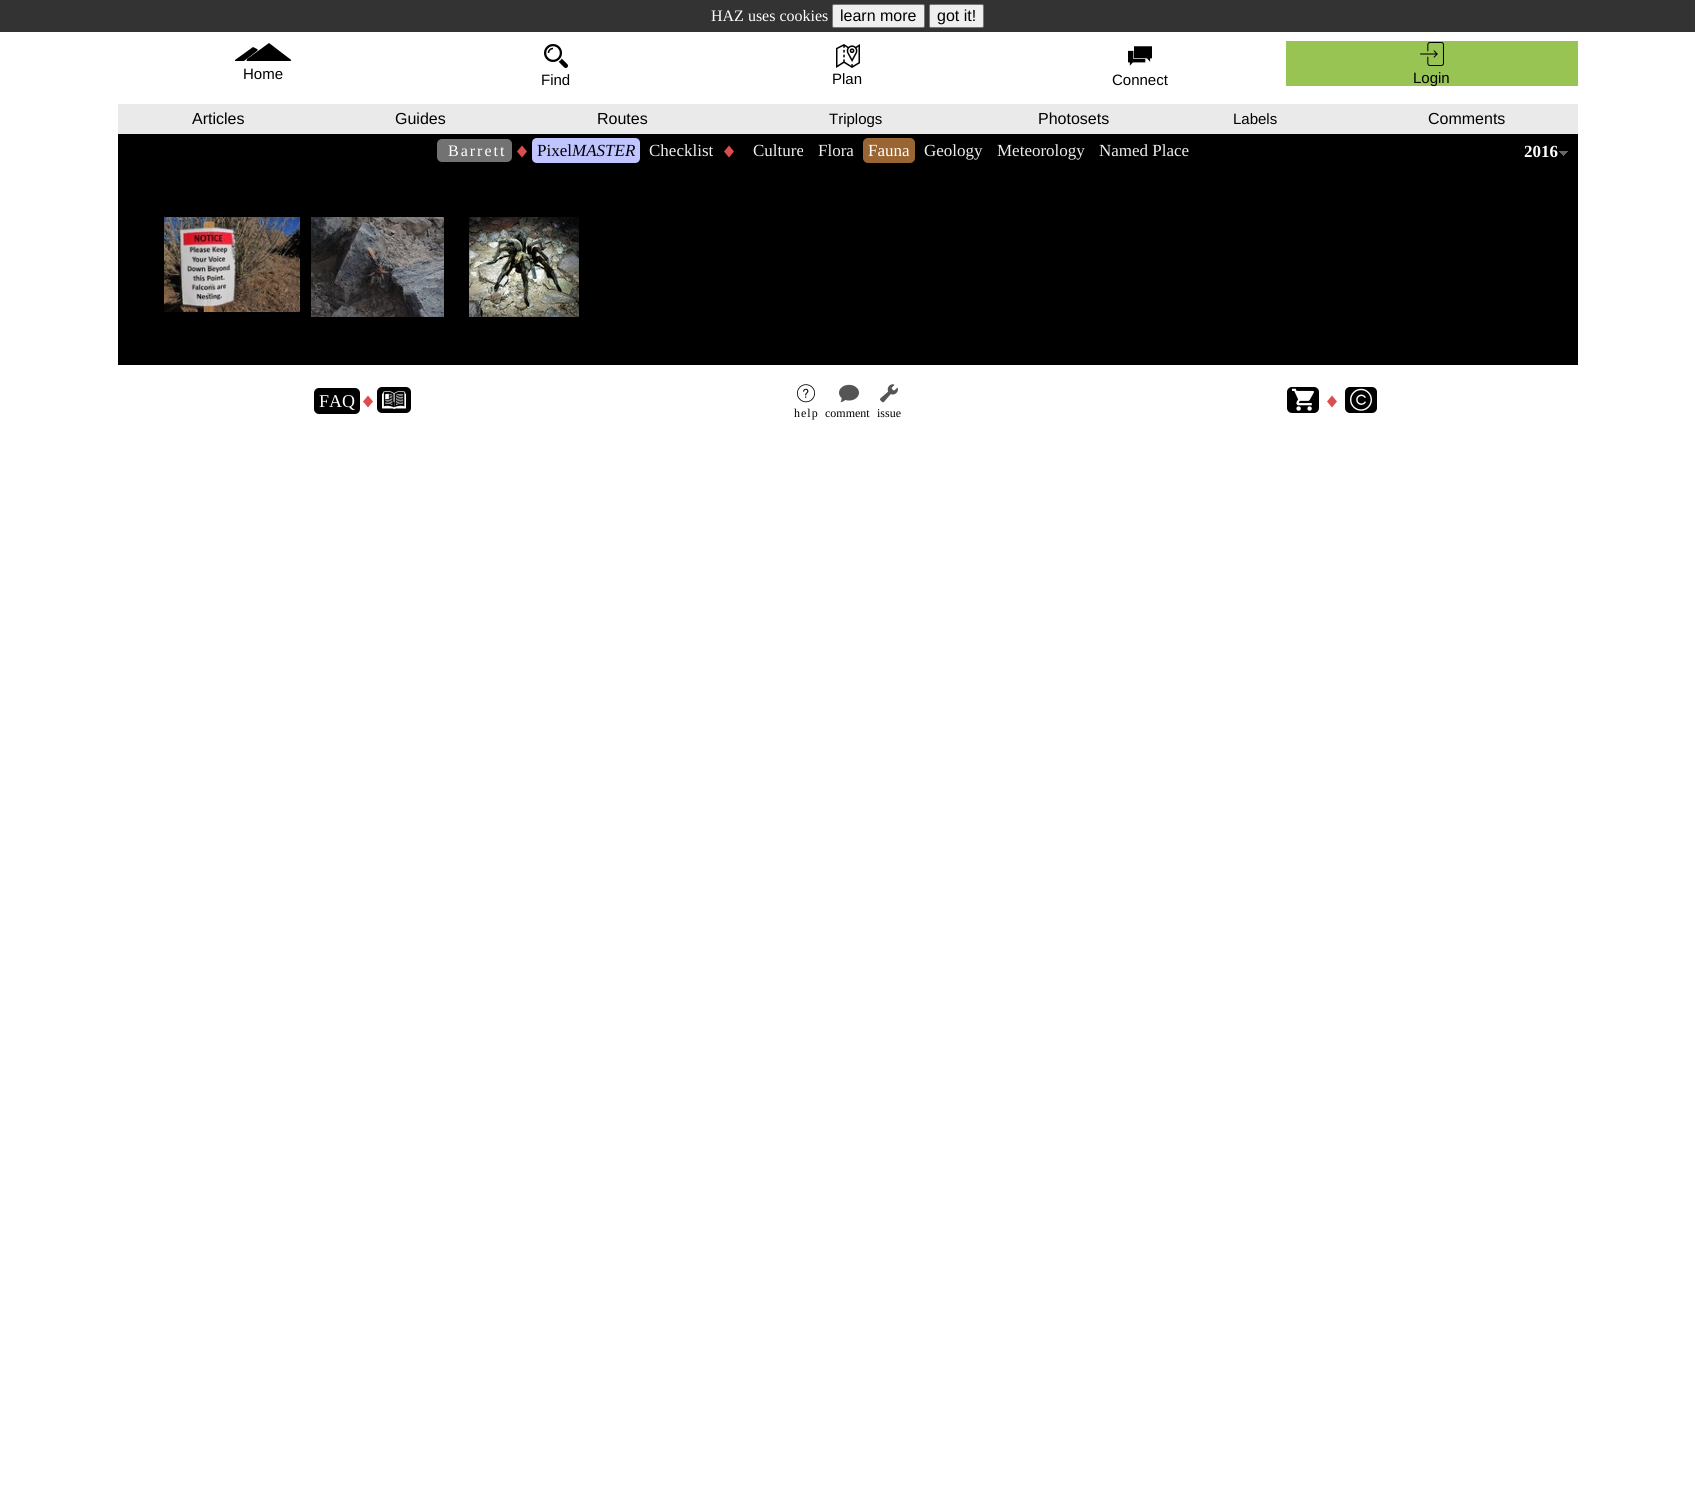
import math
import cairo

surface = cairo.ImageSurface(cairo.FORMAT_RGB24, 1695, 1488)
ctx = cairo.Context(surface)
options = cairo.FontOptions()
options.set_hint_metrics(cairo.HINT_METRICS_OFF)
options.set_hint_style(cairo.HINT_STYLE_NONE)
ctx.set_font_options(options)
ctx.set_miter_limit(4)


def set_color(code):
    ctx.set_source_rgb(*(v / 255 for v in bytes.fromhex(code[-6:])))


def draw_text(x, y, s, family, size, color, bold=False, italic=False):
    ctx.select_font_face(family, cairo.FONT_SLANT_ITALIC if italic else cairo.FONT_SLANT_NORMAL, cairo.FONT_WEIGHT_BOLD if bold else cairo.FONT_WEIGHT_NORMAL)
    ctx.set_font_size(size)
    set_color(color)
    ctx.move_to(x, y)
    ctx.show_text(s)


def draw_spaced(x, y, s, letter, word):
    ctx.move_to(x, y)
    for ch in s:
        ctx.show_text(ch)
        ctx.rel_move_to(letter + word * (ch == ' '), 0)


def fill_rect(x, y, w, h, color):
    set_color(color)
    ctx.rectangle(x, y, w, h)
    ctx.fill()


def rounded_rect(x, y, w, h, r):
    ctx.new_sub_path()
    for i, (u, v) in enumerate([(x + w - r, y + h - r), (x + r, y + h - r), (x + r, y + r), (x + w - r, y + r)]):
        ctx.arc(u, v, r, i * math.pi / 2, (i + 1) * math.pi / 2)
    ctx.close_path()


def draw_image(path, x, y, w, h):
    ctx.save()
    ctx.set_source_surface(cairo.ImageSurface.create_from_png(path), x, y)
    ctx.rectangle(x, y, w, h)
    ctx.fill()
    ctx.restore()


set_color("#ffffff")
ctx.paint()
fill_rect(0, 0, 1695, 32, "#333333")
draw_text(711, 21, "HAZ uses cookies", "Liberation Serif", 16, "#ffffff")
set_color("#efefef")
rounded_rect(832.5, 4.5, 92, 23, 1.5)
ctx.fill_preserve()
set_color("#767676")
ctx.set_line_width(1)
ctx.stroke()
draw_text(840, 21, "learn more", "Liberation Sans", 16, "#000000")
set_color("#efefef")
rounded_rect(929.5, 4.5, 54, 23, 1.5)
ctx.fill_preserve()
set_color("#767676")
ctx.stroke()
draw_text(937, 21, "got it!", "Liberation Sans", 16, "#000000")
ctx.new_path()
ctx.move_to(235, 61)
ctx.line_to(235, 60)
ctx.line_to(253, 47)
ctx.line_to(257, 49)
ctx.curve_to(258, 50, 258, 50, 257, 51)
ctx.line_to(244, 61)
ctx.close_path()
ctx.move_to(247, 61)
ctx.curve_to(246, 61, 247, 60, 247, 59)
ctx.line_to(269, 43)
ctx.line_to(286, 56)
ctx.curve_to(287, 57, 294, 61, 290, 61)
ctx.close_path()
ctx.fill()
draw_text(243, 79, "Home", "Liberation Sans", 15, "#000000")
draw_image("assets/img1.png", 544, 44, 24, 24)
draw_text(541, 85, "Find", "Liberation Sans", 15, "#000000")
draw_image("assets/img2.png", 836, 44, 24, 24)
draw_text(832, 84, "Plan", "Liberation Sans", 15, "#000000")
draw_image("assets/img3.png", 1128, 46, 24, 20)
draw_text(1112, 85, "Connect", "Liberation Sans", 15, "#000000")
fill_rect(1286, 41, 292, 45, "#98c454")
draw_image("assets/img4.png", 1420, 42, 24, 24)
draw_text(1413, 83, "Login", "Liberation Sans", 15, "#000000")
fill_rect(118, 104, 1460, 30, "#eaeaea")
draw_text(192, 124, "Articles", "Liberation Sans", 16, "#000000")
draw_text(395, 124, "Guides", "Liberation Sans", 16, "#000000")
draw_text(597, 124, "Routes", "Liberation Sans", 16, "#000000")
draw_text(829, 124, "Triplogs", "Liberation Sans", 15, "#000000")
draw_text(1038, 124, "Photosets", "Liberation Sans", 16, "#000000")
draw_text(1233, 124, "Labels", "Liberation Sans", 15, "#000000")
draw_text(1428, 124, "Comments", "Liberation Sans", 16, "#000000")
fill_rect(118, 134, 1460, 231, "#000000")
set_color("#727272")
rounded_rect(437, 139, 75, 23, 5)
ctx.fill()
ctx.select_font_face("Liberation Serif")
set_color("#ffffff")
draw_spaced(448, 156, "Barrett", 2, 0)
set_color("#de4d4d")
ctx.new_path()
ctx.move_to(522, 145.5)
ctx.line_to(527, 151.5)
ctx.line_to(522, 157.5)
ctx.line_to(517, 151.5)
ctx.close_path()
ctx.fill()
set_color("#c1c5ff")
ctx.new_path()
ctx.move_to(537, 138)
ctx.line_to(572, 138)
ctx.line_to(572, 163)
ctx.line_to(537, 163)
ctx.curve_to(534, 163, 532, 161, 532, 158)
ctx.line_to(532, 143)
ctx.curve_to(532, 140, 534, 138, 537, 138)
ctx.close_path()
ctx.fill()
draw_text(537, 156, "Pixel", "Liberation Serif", 17, "#000000")
set_color("#c1c5ff")
ctx.new_path()
ctx.move_to(572, 138)
ctx.line_to(635, 138)
ctx.curve_to(638, 138, 640, 140, 640, 143)
ctx.line_to(640, 158)
ctx.curve_to(640, 161, 638, 163, 635, 163)
ctx.line_to(572, 163)
ctx.close_path()
ctx.fill()
draw_text(572, 156, "MASTER", "Liberation Serif", 17, "#000000", italic=True)
draw_text(649, 156, "Checklist", "Liberation Serif", 17, "#eeeeee")
set_color("#de4d4d")
ctx.new_path()
ctx.move_to(729, 145.5)
ctx.line_to(734, 151.5)
ctx.line_to(729, 157.5)
ctx.line_to(724, 151.5)
ctx.close_path()
ctx.fill()
draw_text(753, 156, "Culture", "Liberation Serif", 17, "#eeeeee")
draw_text(818, 156, "Flora", "Liberation Serif", 17, "#eeeeee")
set_color("#996633")
rounded_rect(863, 138, 52, 25, 5)
ctx.fill()
draw_text(868, 156, "Fauna", "Liberation Serif", 17, "#ffffff")
draw_text(924, 156, "Geology", "Liberation Serif", 17, "#eeeeee")
draw_text(997, 156, "Meteorology", "Liberation Serif", 17, "#eeeeee")
draw_text(1099, 156, "Named Place", "Liberation Serif", 17, "#eeeeee")
draw_text(1524, 157, "2016", "Liberation Serif", 17, "#ffffff", bold=True)
draw_image("assets/img5.png", 1559, 151, 9, 5)
draw_image("assets/img6.png", 164, 217, 136, 95)
draw_image("assets/img7.png", 311, 217, 133, 100)
draw_image("assets/img8.png", 469, 217, 110, 100)
set_color("#000000")
rounded_rect(314, 388, 46, 26, 5)
ctx.fill()
draw_text(319, 407, "FAQ", "Liberation Serif", 18, "#ffffff")
set_color("#de4d4d")
ctx.new_path()
ctx.move_to(368, 395.5)
ctx.line_to(373, 401.5)
ctx.line_to(368, 407.5)
ctx.line_to(363, 401.5)
ctx.close_path()
ctx.fill()
set_color("#000000")
rounded_rect(377, 387, 34, 26, 5)
ctx.fill()
draw_image("assets/img9.png", 382, 391, 24, 18)
rounded_rect(1287, 387, 32, 26, 5)
ctx.fill()
draw_image("assets/img10.png", 1292, 388, 22, 23)
set_color("#de4d4d")
ctx.new_path()
ctx.move_to(1332, 395.5)
ctx.line_to(1337, 401.5)
ctx.line_to(1332, 407.5)
ctx.line_to(1327, 401.5)
ctx.close_path()
ctx.fill()
set_color("#000000")
rounded_rect(1345, 387, 32, 26, 5)
ctx.fill()
draw_image("assets/img11.png", 1350, 388, 22, 23)
draw_image("assets/img12.png", 797, 384, 18, 19)
draw_image("assets/img13.png", 839, 384, 20, 19)
draw_image("assets/img14.png", 880, 384, 18, 19)
ctx.set_font_size(12)
draw_spaced(794, 417, "help", 1, 0)
draw_text(825, 417, "comment", "Liberation Serif", 12, "#000000")
draw_text(877, 417, "issue", "Liberation Serif", 12, "#000000")
surface.write_to_png("output.png")
